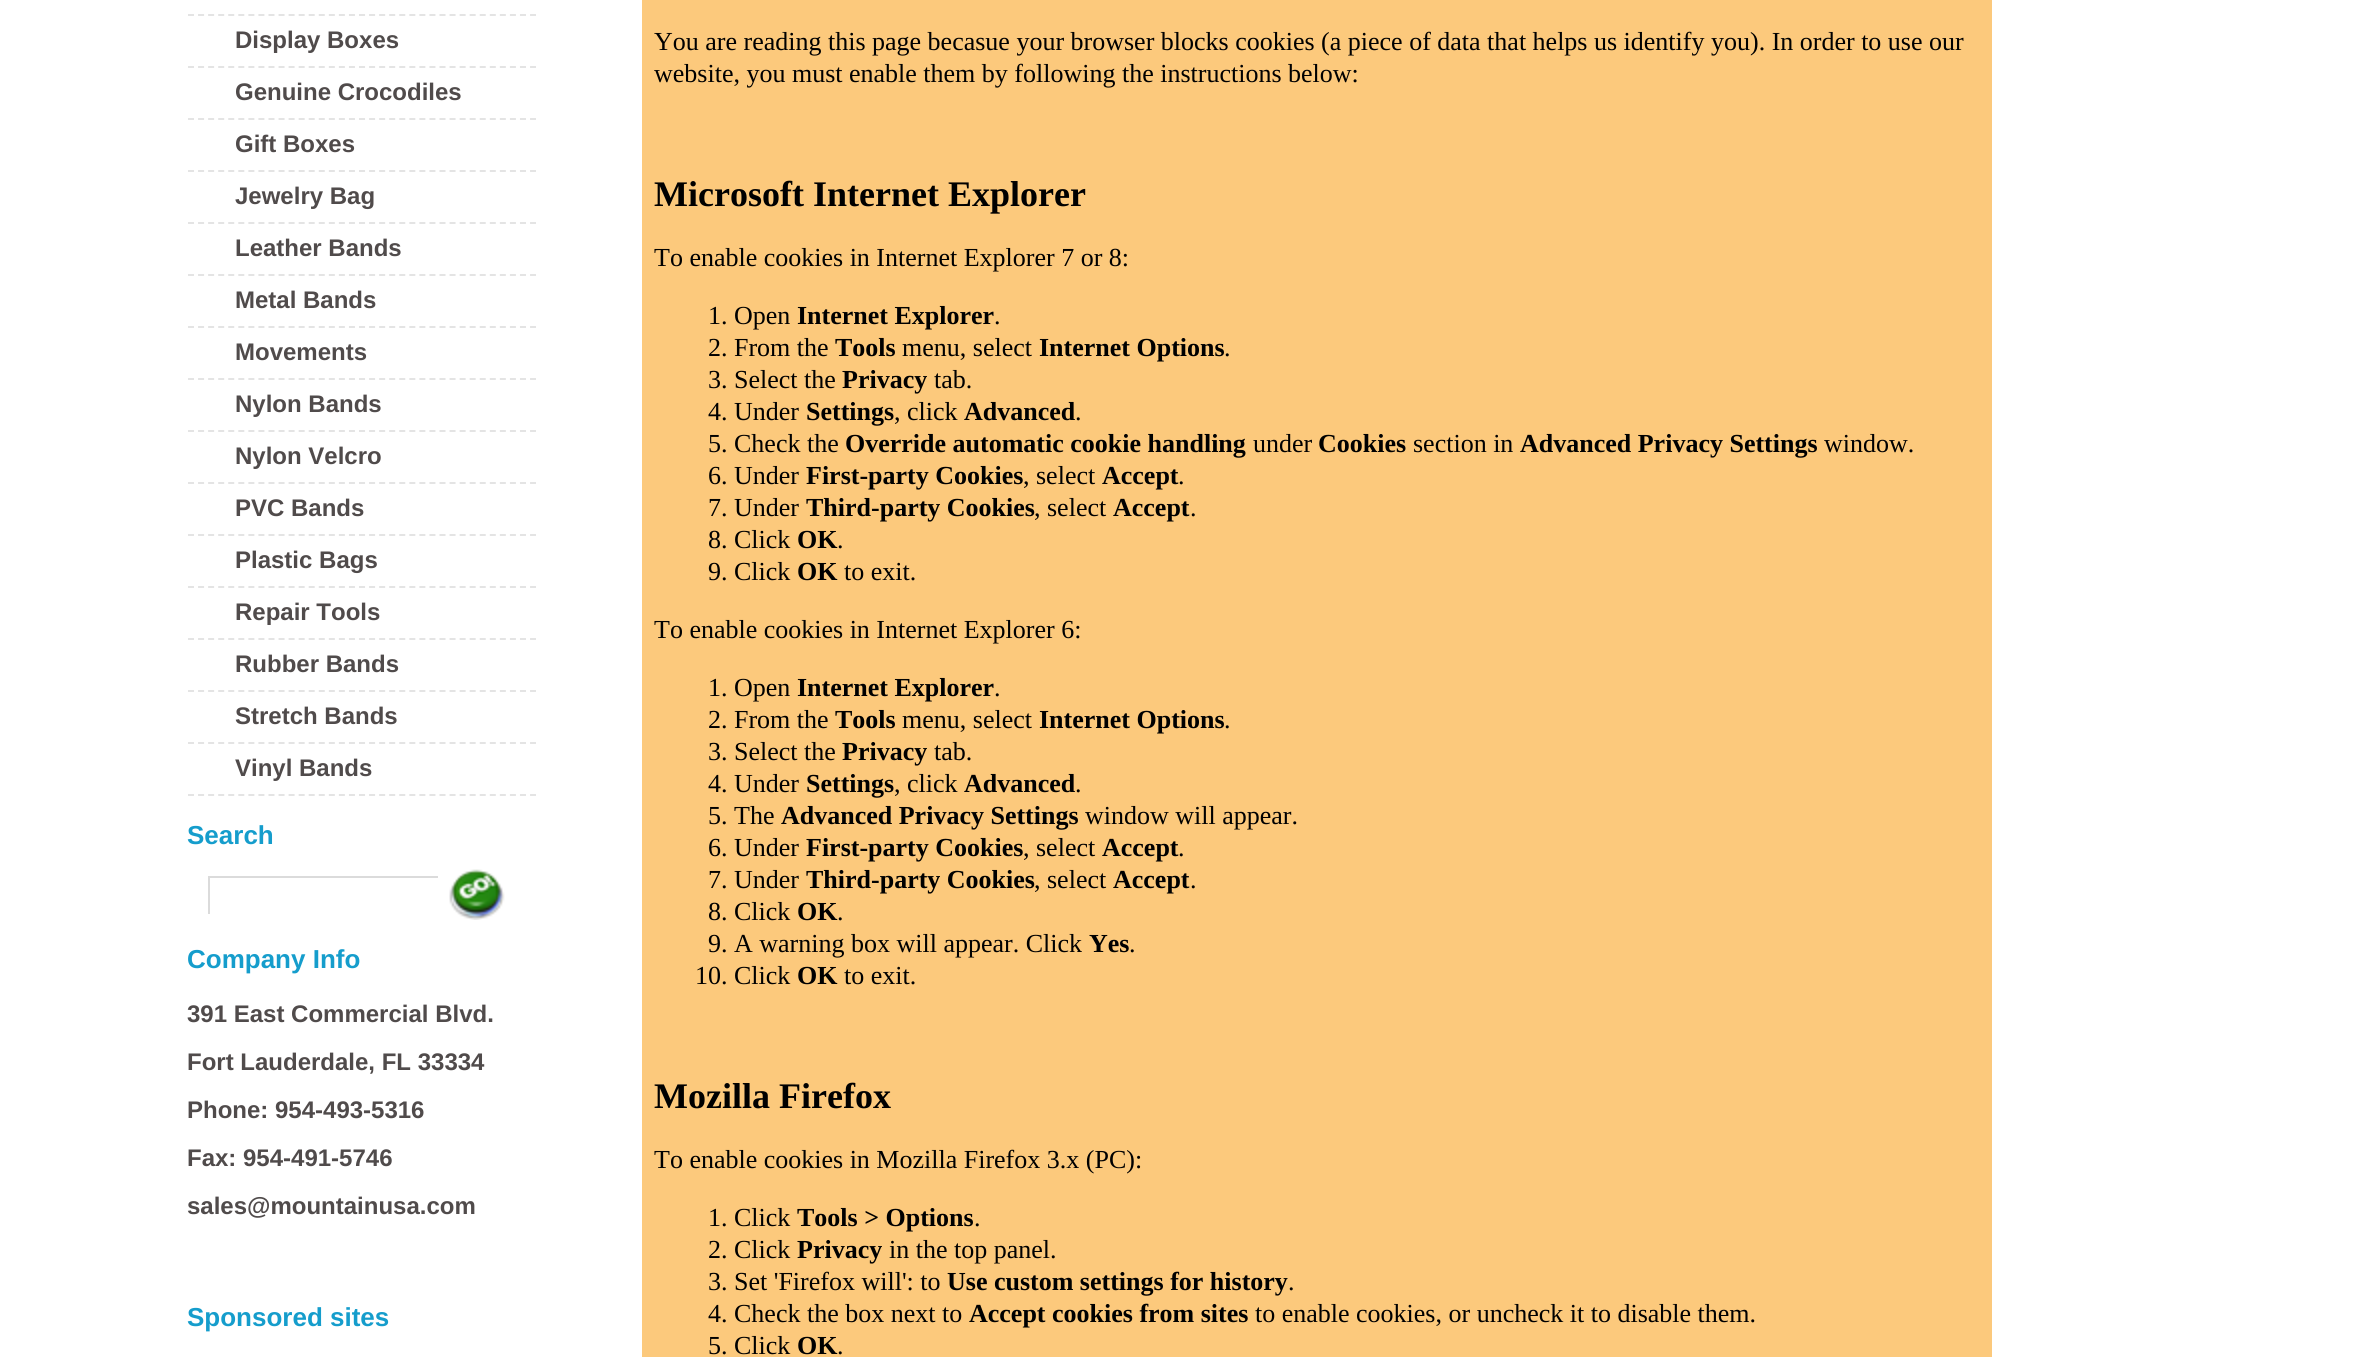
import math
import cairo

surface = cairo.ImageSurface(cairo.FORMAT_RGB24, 2353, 1357)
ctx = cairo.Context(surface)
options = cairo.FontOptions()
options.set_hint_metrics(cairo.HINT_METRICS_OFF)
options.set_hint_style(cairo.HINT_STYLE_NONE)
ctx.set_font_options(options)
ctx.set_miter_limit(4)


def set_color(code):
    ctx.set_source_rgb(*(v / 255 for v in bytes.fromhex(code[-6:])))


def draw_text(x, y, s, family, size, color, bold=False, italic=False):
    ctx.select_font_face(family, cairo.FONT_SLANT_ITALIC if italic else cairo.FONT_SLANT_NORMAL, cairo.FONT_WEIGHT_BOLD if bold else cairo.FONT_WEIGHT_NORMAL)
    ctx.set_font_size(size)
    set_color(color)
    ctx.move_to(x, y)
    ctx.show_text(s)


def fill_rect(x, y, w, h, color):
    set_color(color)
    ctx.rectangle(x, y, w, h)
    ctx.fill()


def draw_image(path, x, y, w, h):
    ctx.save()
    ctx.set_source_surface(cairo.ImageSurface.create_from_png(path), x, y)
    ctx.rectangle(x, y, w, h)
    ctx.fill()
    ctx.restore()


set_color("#ffffff")
ctx.paint()
ctx.new_path()
ctx.move_to(188, 15)
ctx.line_to(536, 15)
set_color("#e4e4e4")
ctx.set_dash([6, 4.06])
ctx.stroke()
ctx.new_path()
ctx.move_to(188, 67)
ctx.line_to(536, 67)
ctx.stroke()
draw_text(235, 48, "Display Boxes", "Liberation Sans", 24, "#504b4b", bold=True)
ctx.new_path()
ctx.move_to(188, 119)
ctx.line_to(536, 119)
set_color("#e4e4e4")
ctx.stroke()
draw_text(235, 100, "Genuine Crocodiles", "Liberation Sans", 24, "#504b4b", bold=True)
ctx.new_path()
ctx.move_to(188, 171)
ctx.line_to(536, 171)
set_color("#e4e4e4")
ctx.stroke()
draw_text(235, 152, "Gift Boxes", "Liberation Sans", 24, "#504b4b", bold=True)
ctx.new_path()
ctx.move_to(188, 223)
ctx.line_to(536, 223)
set_color("#e4e4e4")
ctx.stroke()
draw_text(235, 204, "Jewelry Bag", "Liberation Sans", 24, "#504b4b", bold=True)
ctx.new_path()
ctx.move_to(188, 275)
ctx.line_to(536, 275)
set_color("#e4e4e4")
ctx.stroke()
draw_text(235, 256, "Leather Bands", "Liberation Sans", 24, "#504b4b", bold=True)
ctx.new_path()
ctx.move_to(188, 327)
ctx.line_to(536, 327)
set_color("#e4e4e4")
ctx.stroke()
draw_text(235, 308, "Metal Bands", "Liberation Sans", 24, "#504b4b", bold=True)
ctx.new_path()
ctx.move_to(188, 379)
ctx.line_to(536, 379)
set_color("#e4e4e4")
ctx.stroke()
draw_text(235, 360, "Movements", "Liberation Sans", 24, "#504b4b", bold=True)
ctx.new_path()
ctx.move_to(188, 431)
ctx.line_to(536, 431)
set_color("#e4e4e4")
ctx.stroke()
draw_text(235, 412, "Nylon Bands", "Liberation Sans", 24, "#504b4b", bold=True)
ctx.new_path()
ctx.move_to(188, 483)
ctx.line_to(536, 483)
set_color("#e4e4e4")
ctx.stroke()
draw_text(235, 464, "Nylon Velcro", "Liberation Sans", 24, "#504b4b", bold=True)
ctx.new_path()
ctx.move_to(188, 535)
ctx.line_to(536, 535)
set_color("#e4e4e4")
ctx.stroke()
draw_text(235, 516, "PVC Bands", "Liberation Sans", 24, "#504b4b", bold=True)
ctx.new_path()
ctx.move_to(188, 587)
ctx.line_to(536, 587)
set_color("#e4e4e4")
ctx.stroke()
draw_text(235, 568, "Plastic Bags", "Liberation Sans", 24, "#504b4b", bold=True)
ctx.new_path()
ctx.move_to(188, 639)
ctx.line_to(536, 639)
set_color("#e4e4e4")
ctx.stroke()
draw_text(235, 620, "Repair Tools", "Liberation Sans", 24, "#504b4b", bold=True)
ctx.new_path()
ctx.move_to(188, 691)
ctx.line_to(536, 691)
set_color("#e4e4e4")
ctx.stroke()
draw_text(235, 672, "Rubber Bands", "Liberation Sans", 24, "#504b4b", bold=True)
ctx.new_path()
ctx.move_to(188, 743)
ctx.line_to(536, 743)
set_color("#e4e4e4")
ctx.stroke()
draw_text(235, 724, "Stretch Bands", "Liberation Sans", 24, "#504b4b", bold=True)
ctx.new_path()
ctx.move_to(188, 795)
ctx.line_to(536, 795)
set_color("#e4e4e4")
ctx.stroke()
draw_text(235, 776, "Vinyl Bands", "Liberation Sans", 24, "#504b4b", bold=True)
draw_text(187, 844, "Search", "Liberation Sans", 26, "#159dcc", bold=True)
fill_rect(208, 876, 232, 2, "#dbdbdb")
fill_rect(438, 876, 2, 2, "#ffffff")
fill_rect(208, 876, 2, 38, "#dbdbdb")
draw_image("assets/img1.png", 449, 869, 56, 51)
draw_text(187, 968, "Company Info", "Liberation Sans", 26, "#159dcc", bold=True)
draw_text(187, 1022, "391 East Commercial Blvd.", "Liberation Sans", 24, "#504b4b", bold=True)
draw_text(187, 1070, "Fort Lauderdale, FL 33334", "Liberation Sans", 24, "#504b4b", bold=True)
draw_text(187, 1118, "Phone: 954-493-5316", "Liberation Sans", 24, "#504b4b", bold=True)
draw_text(187, 1166, "Fax: 954-491-5746", "Liberation Sans", 24, "#504b4b", bold=True)
draw_text(187, 1214, "sales@mountainusa.com", "Liberation Sans", 24, "#504b4b", bold=True)
draw_text(187, 1326, "Sponsored sites", "Liberation Sans", 26, "#159dcc", bold=True)
fill_rect(642, 0, 1350, 1357, "#fcc97c")
draw_text(654, 50, "You are reading this page becasue your browser blocks cookies (a piece of data that helps us identify you). In order to use our", "Liberation Serif", 26, "#000000")
draw_text(654, 82, "website, you must enable them by following the instructions below:", "Liberation Serif", 26, "#000000")
draw_text(654, 206, "Microsoft Internet Explorer", "Liberation Serif", 36, "#000000", bold=True)
draw_text(654, 266, "To enable cookies in Internet Explorer 7 or 8:", "Liberation Serif", 26, "#000000")
draw_text(708, 324, "1. Open", "Liberation Serif", 26, "#000000")
draw_text(797, 324, "Internet Explorer", "Liberation Serif", 26, "#000000", bold=True)
draw_text(994, 324, ".", "Liberation Serif", 26, "#000000")
draw_text(708, 356, "2. From the", "Liberation Serif", 26, "#000000")
draw_text(835, 356, "Tools", "Liberation Serif", 26, "#000000", bold=True)
draw_text(902, 356, "menu, select", "Liberation Serif", 26, "#000000")
draw_text(1039, 356, "Internet Options", "Liberation Serif", 26, "#000000", bold=True)
draw_text(1224, 356, ".", "Liberation Serif", 26, "#000000")
draw_text(708, 388, "3. Select the", "Liberation Serif", 26, "#000000")
draw_text(842, 388, "Privacy", "Liberation Serif", 26, "#000000", bold=True)
draw_text(934, 388, "tab.", "Liberation Serif", 26, "#000000")
draw_text(708, 420, "4. Under", "Liberation Serif", 26, "#000000")
draw_text(806, 420, "Settings", "Liberation Serif", 26, "#000000", bold=True)
draw_text(894, 420, ", click", "Liberation Serif", 26, "#000000")
draw_text(964, 420, "Advanced", "Liberation Serif", 26, "#000000", bold=True)
draw_text(1075, 420, ".", "Liberation Serif", 26, "#000000")
draw_text(708, 452, "5. Check the", "Liberation Serif", 26, "#000000")
draw_text(845, 452, "Override automatic cookie handling", "Liberation Serif", 26, "#000000", bold=True)
draw_text(1253, 452, "under", "Liberation Serif", 26, "#000000")
draw_text(1318, 452, "Cookies", "Liberation Serif", 26, "#000000", bold=True)
draw_text(1413, 452, "section in", "Liberation Serif", 26, "#000000")
draw_text(1520, 452, "Advanced Privacy Settings", "Liberation Serif", 26, "#000000", bold=True)
draw_text(1824, 452, "window.", "Liberation Serif", 26, "#000000")
draw_text(708, 484, "6. Under", "Liberation Serif", 26, "#000000")
draw_text(806, 484, "First-party Cookies", "Liberation Serif", 26, "#000000", bold=True)
draw_text(1023, 484, ", select", "Liberation Serif", 26, "#000000")
draw_text(1102, 484, "Accept", "Liberation Serif", 26, "#000000", bold=True)
draw_text(1178, 484, ".", "Liberation Serif", 26, "#000000")
draw_text(708, 516, "7. Under", "Liberation Serif", 26, "#000000")
draw_text(806, 516, "Third-party Cookies", "Liberation Serif", 26, "#000000", bold=True)
draw_text(1034, 516, ", select", "Liberation Serif", 26, "#000000")
draw_text(1113, 516, "Accept", "Liberation Serif", 26, "#000000", bold=True)
draw_text(1190, 516, ".", "Liberation Serif", 26, "#000000")
draw_text(708, 548, "8. Click", "Liberation Serif", 26, "#000000")
draw_text(797, 548, "OK", "Liberation Serif", 26, "#000000", bold=True)
draw_text(837, 548, ".", "Liberation Serif", 26, "#000000")
draw_text(708, 580, "9. Click", "Liberation Serif", 26, "#000000")
draw_text(797, 580, "OK", "Liberation Serif", 26, "#000000", bold=True)
draw_text(844, 580, "to exit.", "Liberation Serif", 26, "#000000")
draw_text(654, 638, "To enable cookies in Internet Explorer 6:", "Liberation Serif", 26, "#000000")
draw_text(708, 696, "1. Open", "Liberation Serif", 26, "#000000")
draw_text(797, 696, "Internet Explorer", "Liberation Serif", 26, "#000000", bold=True)
draw_text(994, 696, ".", "Liberation Serif", 26, "#000000")
draw_text(708, 728, "2. From the", "Liberation Serif", 26, "#000000")
draw_text(835, 728, "Tools", "Liberation Serif", 26, "#000000", bold=True)
draw_text(902, 728, "menu, select", "Liberation Serif", 26, "#000000")
draw_text(1039, 728, "Internet Options", "Liberation Serif", 26, "#000000", bold=True)
draw_text(1224, 728, ".", "Liberation Serif", 26, "#000000")
draw_text(708, 760, "3. Select the", "Liberation Serif", 26, "#000000")
draw_text(842, 760, "Privacy", "Liberation Serif", 26, "#000000", bold=True)
draw_text(934, 760, "tab.", "Liberation Serif", 26, "#000000")
draw_text(708, 792, "4. Under", "Liberation Serif", 26, "#000000")
draw_text(806, 792, "Settings", "Liberation Serif", 26, "#000000", bold=True)
draw_text(894, 792, ", click", "Liberation Serif", 26, "#000000")
draw_text(964, 792, "Advanced", "Liberation Serif", 26, "#000000", bold=True)
draw_text(1075, 792, ".", "Liberation Serif", 26, "#000000")
draw_text(708, 824, "5. The", "Liberation Serif", 26, "#000000")
draw_text(781, 824, "Advanced Privacy Settings", "Liberation Serif", 26, "#000000", bold=True)
draw_text(1085, 824, "window will appear.", "Liberation Serif", 26, "#000000")
draw_text(708, 856, "6. Under", "Liberation Serif", 26, "#000000")
draw_text(806, 856, "First-party Cookies", "Liberation Serif", 26, "#000000", bold=True)
draw_text(1023, 856, ", select", "Liberation Serif", 26, "#000000")
draw_text(1102, 856, "Accept", "Liberation Serif", 26, "#000000", bold=True)
draw_text(1178, 856, ".", "Liberation Serif", 26, "#000000")
draw_text(708, 888, "7. Under", "Liberation Serif", 26, "#000000")
draw_text(806, 888, "Third-party Cookies", "Liberation Serif", 26, "#000000", bold=True)
draw_text(1034, 888, ", select", "Liberation Serif", 26, "#000000")
draw_text(1113, 888, "Accept", "Liberation Serif", 26, "#000000", bold=True)
draw_text(1190, 888, ".", "Liberation Serif", 26, "#000000")
draw_text(708, 920, "8. Click", "Liberation Serif", 26, "#000000")
draw_text(797, 920, "OK", "Liberation Serif", 26, "#000000", bold=True)
draw_text(837, 920, ".", "Liberation Serif", 26, "#000000")
draw_text(708, 952, "9. A warning box will appear. Click", "Liberation Serif", 26, "#000000")
draw_text(1089, 952, "Yes", "Liberation Serif", 26, "#000000", bold=True)
draw_text(1129, 952, ".", "Liberation Serif", 26, "#000000")
draw_text(695, 984, "10. Click", "Liberation Serif", 26, "#000000")
draw_text(797, 984, "OK", "Liberation Serif", 26, "#000000", bold=True)
draw_text(844, 984, "to exit.", "Liberation Serif", 26, "#000000")
draw_text(654, 1108, "Mozilla Firefox", "Liberation Serif", 36, "#000000", bold=True)
draw_text(654, 1168, "To enable cookies in Mozilla Firefox 3.x (PC):", "Liberation Serif", 26, "#000000")
draw_text(708, 1226, "1. Click", "Liberation Serif", 26, "#000000")
draw_text(797, 1226, "Tools > Options", "Liberation Serif", 26, "#000000", bold=True)
draw_text(974, 1226, ".", "Liberation Serif", 26, "#000000")
draw_text(708, 1258, "2. Click", "Liberation Serif", 26, "#000000")
draw_text(797, 1258, "Privacy", "Liberation Serif", 26, "#000000", bold=True)
draw_text(889, 1258, "in the top panel.", "Liberation Serif", 26, "#000000")
draw_text(708, 1290, "3. Set 'Firefox will': to", "Liberation Serif", 26, "#000000")
draw_text(947, 1290, "Use custom settings for history", "Liberation Serif", 26, "#000000", bold=True)
draw_text(1288, 1290, ".", "Liberation Serif", 26, "#000000")
draw_text(708, 1322, "4. Check the box next to", "Liberation Serif", 26, "#000000")
draw_text(969, 1322, "Accept cookies from sites", "Liberation Serif", 26, "#000000", bold=True)
draw_text(1255, 1322, "to enable cookies, or uncheck it to disable them.", "Liberation Serif", 26, "#000000")
draw_text(708, 1354, "5. Click", "Liberation Serif", 26, "#000000")
draw_text(797, 1354, "OK", "Liberation Serif", 26, "#000000", bold=True)
draw_text(837, 1354, ".", "Liberation Serif", 26, "#000000")
surface.write_to_png("output.png")
